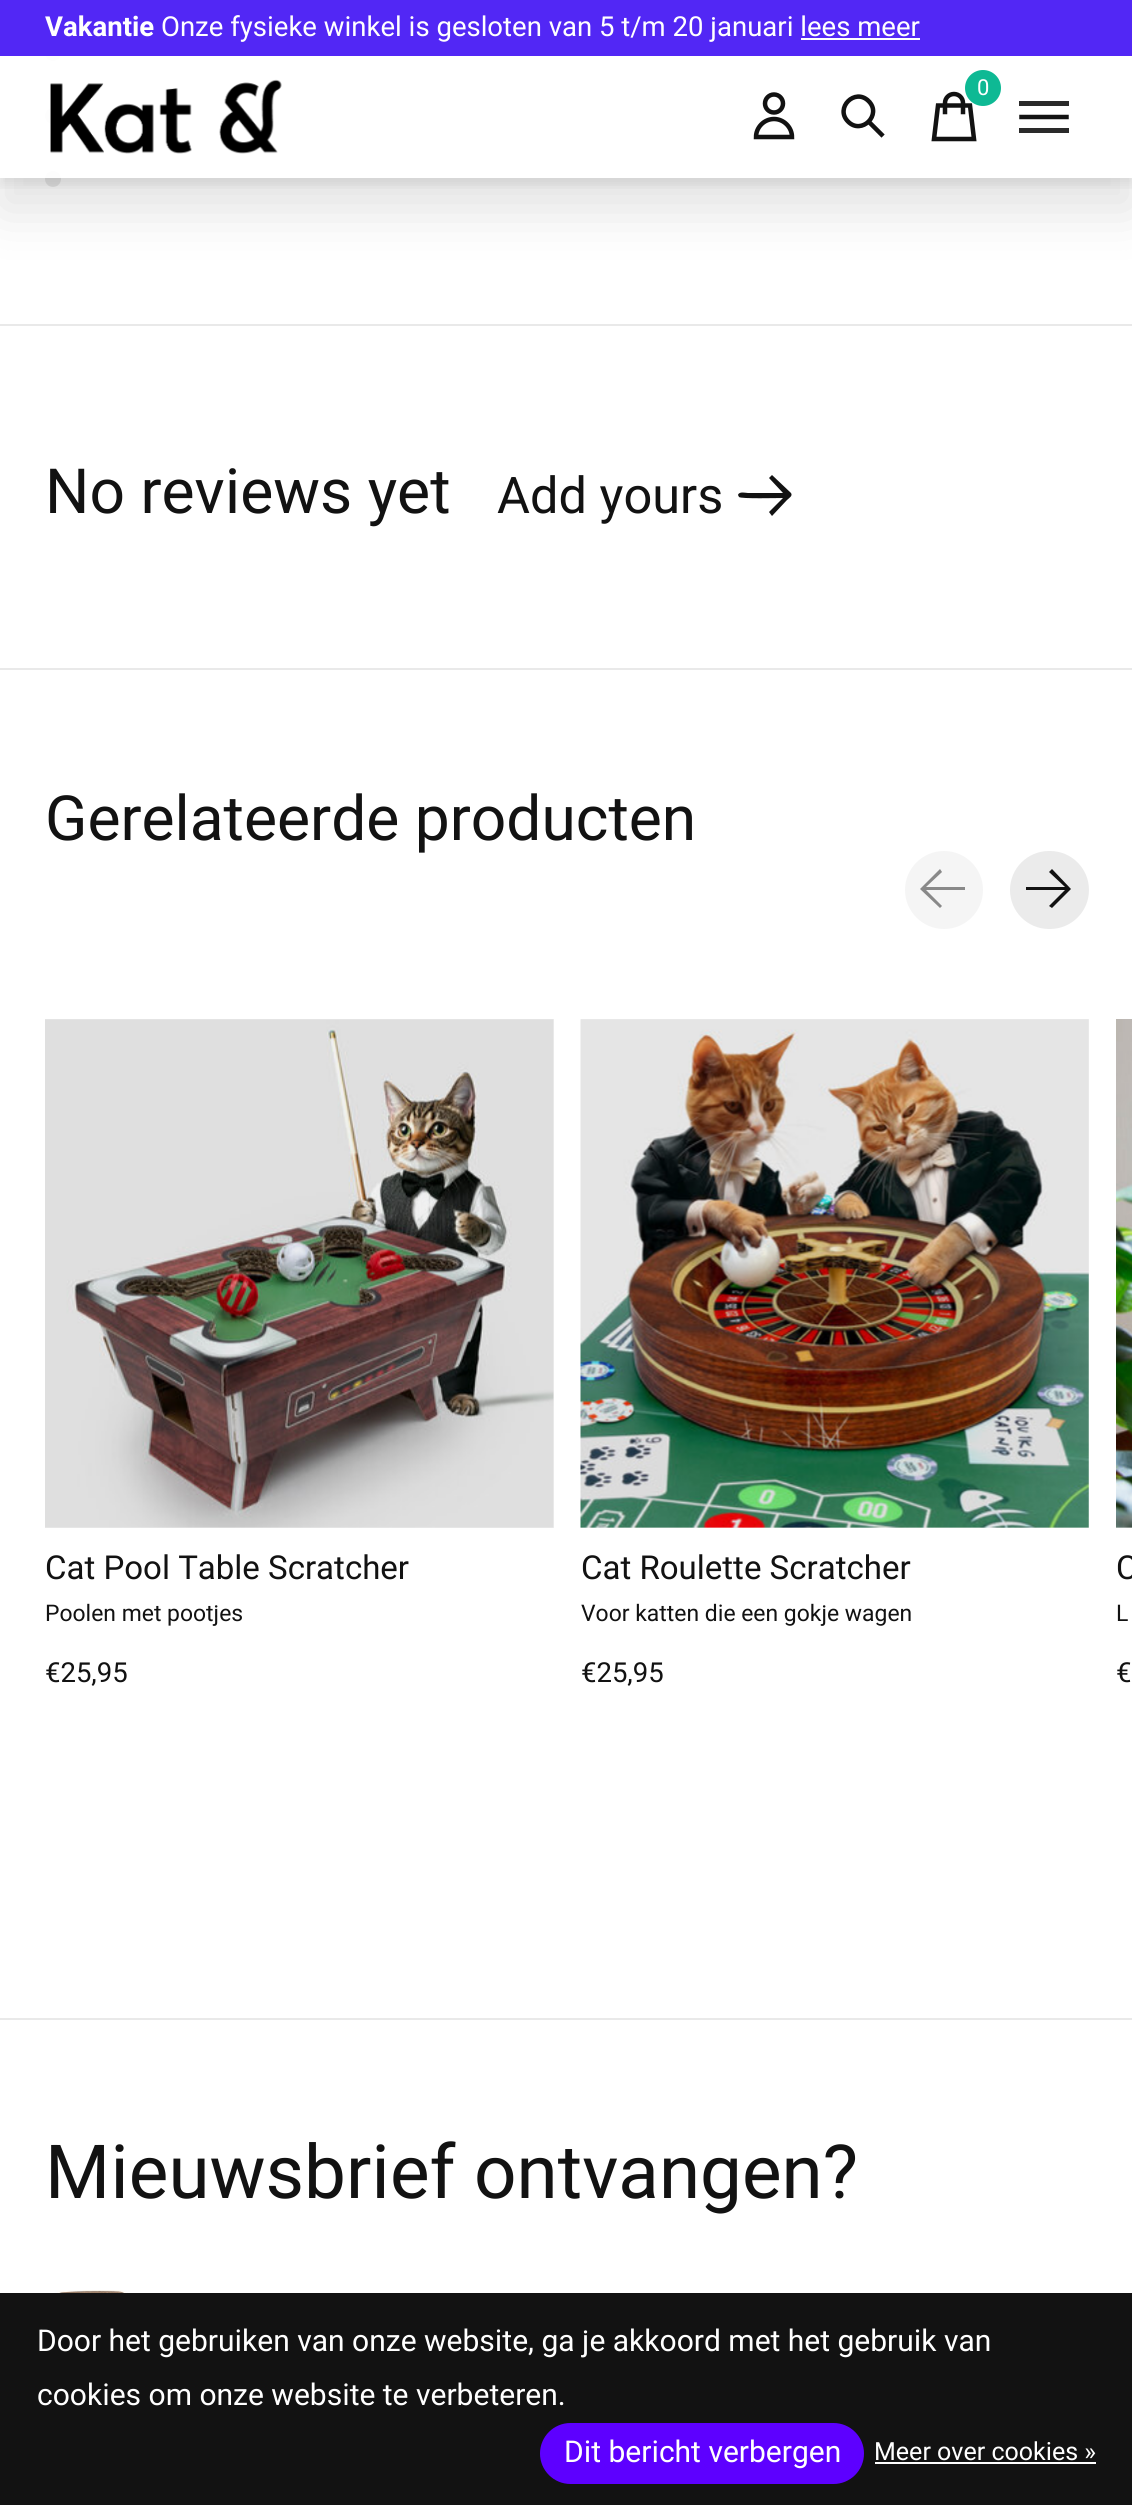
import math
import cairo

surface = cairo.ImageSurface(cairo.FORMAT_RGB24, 1132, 2505)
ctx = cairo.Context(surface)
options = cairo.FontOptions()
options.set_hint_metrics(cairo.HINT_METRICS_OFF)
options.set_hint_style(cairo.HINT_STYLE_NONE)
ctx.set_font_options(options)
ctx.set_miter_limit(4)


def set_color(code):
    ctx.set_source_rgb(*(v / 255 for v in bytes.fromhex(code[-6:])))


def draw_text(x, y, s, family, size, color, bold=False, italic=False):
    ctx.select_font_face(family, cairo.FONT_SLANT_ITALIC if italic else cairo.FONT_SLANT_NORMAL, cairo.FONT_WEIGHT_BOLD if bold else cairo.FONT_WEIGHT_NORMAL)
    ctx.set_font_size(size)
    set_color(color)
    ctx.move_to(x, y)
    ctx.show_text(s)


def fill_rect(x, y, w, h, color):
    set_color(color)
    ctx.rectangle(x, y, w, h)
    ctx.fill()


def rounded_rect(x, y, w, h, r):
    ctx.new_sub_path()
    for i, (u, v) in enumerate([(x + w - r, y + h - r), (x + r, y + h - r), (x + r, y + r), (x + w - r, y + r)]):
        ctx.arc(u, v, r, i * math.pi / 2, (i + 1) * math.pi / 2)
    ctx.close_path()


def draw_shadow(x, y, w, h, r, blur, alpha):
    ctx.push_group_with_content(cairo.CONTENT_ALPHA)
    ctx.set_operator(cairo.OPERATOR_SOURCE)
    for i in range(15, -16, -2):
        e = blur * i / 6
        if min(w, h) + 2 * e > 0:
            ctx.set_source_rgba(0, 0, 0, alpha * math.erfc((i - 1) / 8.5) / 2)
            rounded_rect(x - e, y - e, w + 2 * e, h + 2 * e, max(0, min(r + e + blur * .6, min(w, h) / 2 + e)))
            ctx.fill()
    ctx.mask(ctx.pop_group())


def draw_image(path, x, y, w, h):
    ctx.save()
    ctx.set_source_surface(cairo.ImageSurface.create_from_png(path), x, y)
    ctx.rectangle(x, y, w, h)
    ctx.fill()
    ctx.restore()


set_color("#ffffff")
ctx.paint()
set_color("#e9e9e9")
ctx.arc(53, 53, 8, 0, 2 * math.pi)
ctx.fill()
ctx.arc(53, 116, 8, 0, 2 * math.pi)
ctx.fill()
ctx.arc(53, 179, 8, 0, 2 * math.pi)
ctx.fill()
ctx.save()
ctx.set_fill_rule(cairo.FILL_RULE_EVEN_ODD)
ctx.new_path()
ctx.move_to(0, 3)
ctx.line_to(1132, 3)
ctx.line_to(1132, 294)
ctx.line_to(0, 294)
ctx.close_path()
ctx.move_to(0, 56)
ctx.line_to(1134, 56)
ctx.line_to(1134, 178)
ctx.line_to(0, 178)
ctx.close_path()
ctx.clip()
set_color("#000000")
draw_shadow(0, 88, 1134, 121, 0, 28, 0.12)
ctx.restore()
ctx.save()
ctx.rectangle(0, 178, 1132, 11)
ctx.clip()
set_color("#000000")
draw_shadow(0, 63, 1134, 122, 0, 6, 0.08)
ctx.restore()
fill_rect(0, 0, 1132, 56, "#5227f5")
draw_text(45, 36, "Vakantie", "Heebo", 27.5, "#ffffff", bold=True)
draw_text(161, 36, "Onze fysieke winkel is gesloten van 5 t/m 20 januari lees meer", "Heebo", 27.5, "#ffffff")
fill_rect(801, 38, 119, 2, "#ffffff")
fill_rect(0, 324, 1132, 2, "#e9e9e9")
ctx.set_source_rgba(1, 1, 1, 0.9)
ctx.rectangle(0, 56, 1132, 122)
ctx.fill()
draw_image("assets/img1.png", 50, 79, 232, 75)
ctx.new_path()
ctx.move_to(974, 139)
ctx.line_to(934, 139)
ctx.line_to(938, 105.5)
ctx.line_to(970, 105.5)
ctx.close_path()
ctx.move_to(945, 112)
ctx.line_to(945, 103)
ctx.curve_to(945, 98, 949, 94, 954, 94)
ctx.curve_to(959, 94, 963, 98, 963, 103)
ctx.line_to(963, 112)
set_color("#121212")
ctx.set_line_width(4.5)
ctx.set_line_cap(cairo.LINE_CAP_SQUARE)
ctx.stroke()
set_color("#0eb994")
ctx.arc(983, 88, 18, 0, 2 * math.pi)
ctx.fill()
draw_text(977, 95, "0", "Heebo", 22, "#ffffff")
ctx.new_path()
ctx.arc(774, 103.5, 9, 0, 2 * math.pi)
set_color("#121212")
ctx.set_line_cap(cairo.LINE_CAP_BUTT)
ctx.stroke()
ctx.new_path()
ctx.move_to(774, 119)
ctx.curve_to(764, 119, 756, 127.5, 756, 137)
ctx.line_to(792, 137)
ctx.curve_to(792, 127.5, 784, 119, 774, 119)
ctx.close_path()
ctx.set_line_cap(cairo.LINE_CAP_SQUARE)
ctx.stroke()
ctx.new_path()
ctx.move_to(869, 122)
ctx.line_to(881.5, 134.5)
ctx.move_to(868.5, 101)
ctx.curve_to(882.5, 114.5, 861.5, 135.5, 848, 121.5)
ctx.curve_to(834.5, 108, 855, 87.5, 868.5, 101)
ctx.stroke()
fill_rect(1019, 101, 50, 5, "#2a2a2a")
ctx.new_path()
ctx.move_to(1021.5, 117)
ctx.line_to(1066.5, 117)
set_color("#121212")
ctx.stroke()
fill_rect(1019, 128, 50, 5, "#2a2a2a")
fill_rect(0, 668, 1132, 2, "#e9e9e9")
draw_text(45, 513, "No reviews yet", "Heebo", 62.25, "#121212")
draw_text(497, 513, "Add yours", "Heebo", 50.5, "#121212")
ctx.new_path()
ctx.move_to(791, 493)
ctx.line_to(772, 475)
ctx.line_to(769, 478)
ctx.line_to(783, 493)
ctx.line_to(748, 493)
ctx.curve_to(746, 493, 739, 491, 738, 495)
ctx.line_to(739, 497)
ctx.curve_to(741, 499, 778, 498, 783, 498)
ctx.line_to(769, 512)
ctx.line_to(772, 516)
ctx.line_to(787, 500)
ctx.curve_to(789, 498, 793, 496, 791, 493)
ctx.close_path()
ctx.fill()
fill_rect(0, 2018, 1132, 2, "#e9e9e9")
draw_text(45, 840, "Gerelateerde producten", "Heebo", 62.25, "#121212")
set_color("#f5f5f5")
ctx.new_path()
ctx.arc(944, 890, 39, 0, 2 * math.pi)
ctx.fill()
set_color("#898989")
ctx.new_path()
ctx.move_to(940, 869)
ctx.line_to(920, 889)
ctx.line_to(940, 908)
ctx.line_to(942, 906)
ctx.line_to(926, 890)
ctx.line_to(965, 890)
ctx.line_to(965, 887)
ctx.line_to(926, 887)
ctx.line_to(942, 872)
ctx.close_path()
ctx.fill()
set_color("#ebebeb")
rounded_rect(1010, 851, 79, 78, 39)
ctx.fill()
set_color("#121212")
ctx.new_path()
ctx.move_to(1052, 908)
ctx.line_to(1071, 889)
ctx.line_to(1052, 869)
ctx.line_to(1049, 872)
ctx.line_to(1065, 887)
ctx.line_to(1026, 887)
ctx.line_to(1026, 890)
ctx.line_to(1065, 890)
ctx.line_to(1049, 906)
ctx.close_path()
ctx.fill()
fill_rect(45, 1019, 509, 509, "#f2f2f2")
draw_image("assets/img2.png", 45, 1019, 509, 509)
draw_text(45, 1579, "Cat Pool Table Scratcher", "Heebo", 33, "#121212")
draw_text(45, 1621, "Poolen met pootjes", "Heebo", 22.9, "#121212")
draw_text(45, 1682, "€25,95", "Heebo", 27.5, "#121212")
fill_rect(581, 1019, 508, 509, "#f2f2f2")
draw_image("assets/img3.png", 580, 1019, 509, 509)
draw_text(581, 1579, "Cat Roulette Scratcher", "Heebo", 33, "#121212")
draw_text(581, 1621, "Voor katten die een gokje wagen", "Heebo", 22.9, "#121212")
draw_text(581, 1682, "€25,95", "Heebo", 27.5, "#121212")
fill_rect(1116, 1527, 16, 1, "#f2f2f2")
draw_image("assets/img4.png", 1116, 1019, 16, 509)
draw_text(1116, 1579, "C", "Heebo", 33, "#121212")
draw_text(1116, 1621, "L", "Heebo", 22.9, "#121212")
draw_text(1116, 1682, "€", "Heebo", 27.5, "#121212")
draw_text(45, 2198, "Mieuwsbrief ontvangen?", "Heebo", 74.6, "#121212")
draw_image("assets/img5.png", 45, 2290, 95, 3)
fill_rect(0, 2293, 1132, 212, "#121212")
draw_text(37, 2351, "Door het gebruiken van onze website, ga je akkoord met het gebruik van", "Heebo", 30, "#ffffff")
draw_text(37, 2405, "cookies om onze website te verbeteren.", "Heebo", 30, "#ffffff")
set_color("#5d00ff")
rounded_rect(540, 2423, 324, 61, 30.5)
ctx.fill()
draw_text(564, 2462, "Dit bericht verbergen", "Heebo", 30, "#ffffff")
draw_text(874, 2460, "Meer over cookies »", "Heebo", 25, "#ffffff")
fill_rect(875, 2462, 221, 2, "#ffffff")
surface.write_to_png("output.png")
